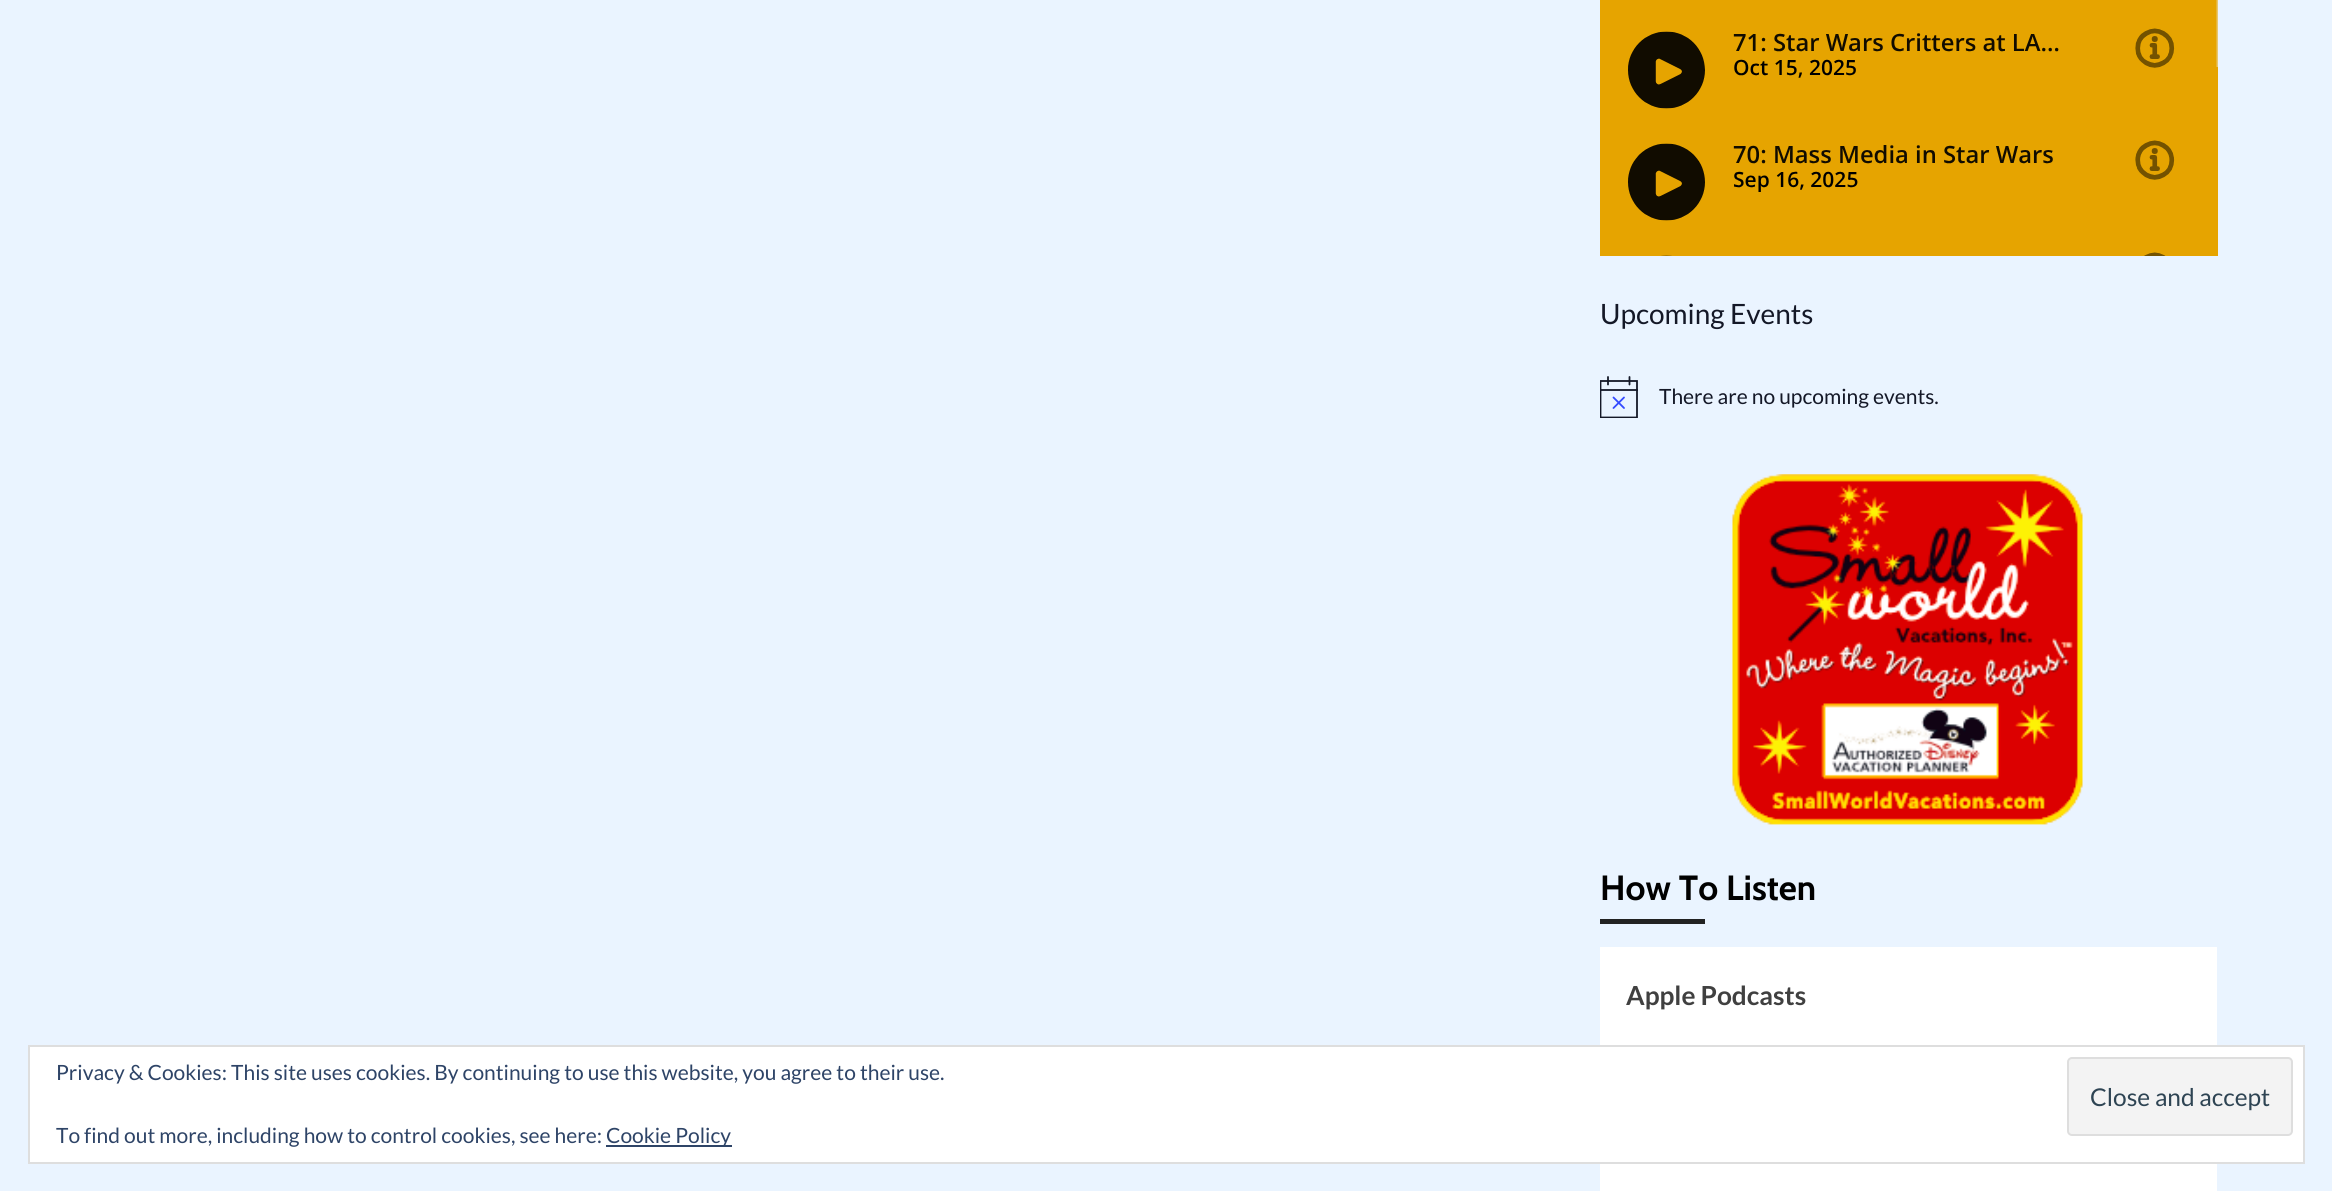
import math
import cairo

surface = cairo.ImageSurface(cairo.FORMAT_RGB24, 2332, 1191)
ctx = cairo.Context(surface)
options = cairo.FontOptions()
options.set_hint_metrics(cairo.HINT_METRICS_OFF)
options.set_hint_style(cairo.HINT_STYLE_NONE)
ctx.set_font_options(options)
ctx.set_miter_limit(4)


def set_color(code):
    ctx.set_source_rgb(*(v / 255 for v in bytes.fromhex(code[-6:])))


def draw_text(x, y, s, family, size, color, bold=False, italic=False):
    ctx.select_font_face(family, cairo.FONT_SLANT_ITALIC if italic else cairo.FONT_SLANT_NORMAL, cairo.FONT_WEIGHT_BOLD if bold else cairo.FONT_WEIGHT_NORMAL)
    ctx.set_font_size(size)
    set_color(color)
    ctx.move_to(x, y)
    ctx.show_text(s)


def fill_rect(x, y, w, h, color):
    set_color(color)
    ctx.rectangle(x, y, w, h)
    ctx.fill()


def rounded_rect(x, y, w, h, r):
    ctx.new_sub_path()
    for i, (u, v) in enumerate([(x + w - r, y + h - r), (x + r, y + h - r), (x + r, y + r), (x + w - r, y + r)]):
        ctx.arc(u, v, r, i * math.pi / 2, (i + 1) * math.pi / 2)
    ctx.close_path()


def draw_image(path, x, y, w, h):
    ctx.save()
    ctx.set_source_surface(cairo.ImageSurface.create_from_png(path), x, y)
    ctx.rectangle(x, y, w, h)
    ctx.fill()
    ctx.restore()


set_color("#eaf4ff")
ctx.paint()
draw_image("assets/img1.png", 1600, 0, 618, 256)
draw_text(1600, 324, "Upcoming Events", "Lato", 28, "#141827")
ctx.save()
ctx.rectangle(1600, 376, 38, 42)
ctx.clip()
ctx.new_path()
ctx.move_to(1600.5, 381)
ctx.line_to(1637, 381)
ctx.line_to(1637, 417.5)
ctx.line_to(1600.5, 417.5)
ctx.close_path()
ctx.set_line_width(1.8)
ctx.stroke()
ctx.restore()
ctx.new_path()
ctx.move_to(1613.5, 397.5)
ctx.line_to(1624, 408)
ctx.move_to(1624, 397.5)
ctx.line_to(1613.5, 408)
set_color("#334aff")
ctx.set_line_width(1.8)
ctx.set_line_cap(cairo.LINE_CAP_ROUND)
ctx.stroke()
ctx.new_path()
ctx.move_to(1608, 377)
ctx.line_to(1608, 384.5)
ctx.move_to(1629.5, 377)
ctx.line_to(1629.5, 384.5)
set_color("#141827")
ctx.stroke()
ctx.set_source_rgba(0.078, 0.094, 0.153, 0.9)
ctx.rectangle(1600, 389, 38, 2)
ctx.fill()
draw_text(1659, 404, "There are no upcoming events.", "Lato", 21, "#141827")
draw_image("assets/img2.png", 1732, 474, 351, 351)
draw_text(1600, 900, "How To Listen", "Cabin", 35, "#000000", bold=True)
fill_rect(1600, 919, 105, 5, "#222222")
fill_rect(1600, 947, 617, 244, "#ffffff")
draw_text(1626, 1005, "Apple Podcasts", "Lato", 26.25, "#404040", bold=True)
set_color("#ffffff")
ctx.rectangle(29, 1046, 2275, 117)
ctx.fill_preserve()
set_color("#dedede")
ctx.set_line_width(2)
ctx.set_line_cap(cairo.LINE_CAP_BUTT)
ctx.stroke()
draw_text(56, 1080, "Privacy & Cookies: This site uses cookies. By continuing to use this website, you agree to their use.", "Lato", 21, "#2e4467")
set_color("#f3f3f3")
rounded_rect(2068, 1058, 224, 77, 4)
ctx.fill_preserve()
set_color("#dedede")
ctx.stroke()
draw_text(2090, 1106, "Close and accept", "Lato", 24.5, "#2e4453")
draw_text(56, 1143, "To find out more, including how to control cookies, see here:", "Lato", 21, "#2e4467")
fill_rect(606, 1145, 126, 2, "#2e4467")
draw_text(606, 1143, "Cookie Policy", "Lato", 21, "#2e4467")
surface.write_to_png("output.png")
